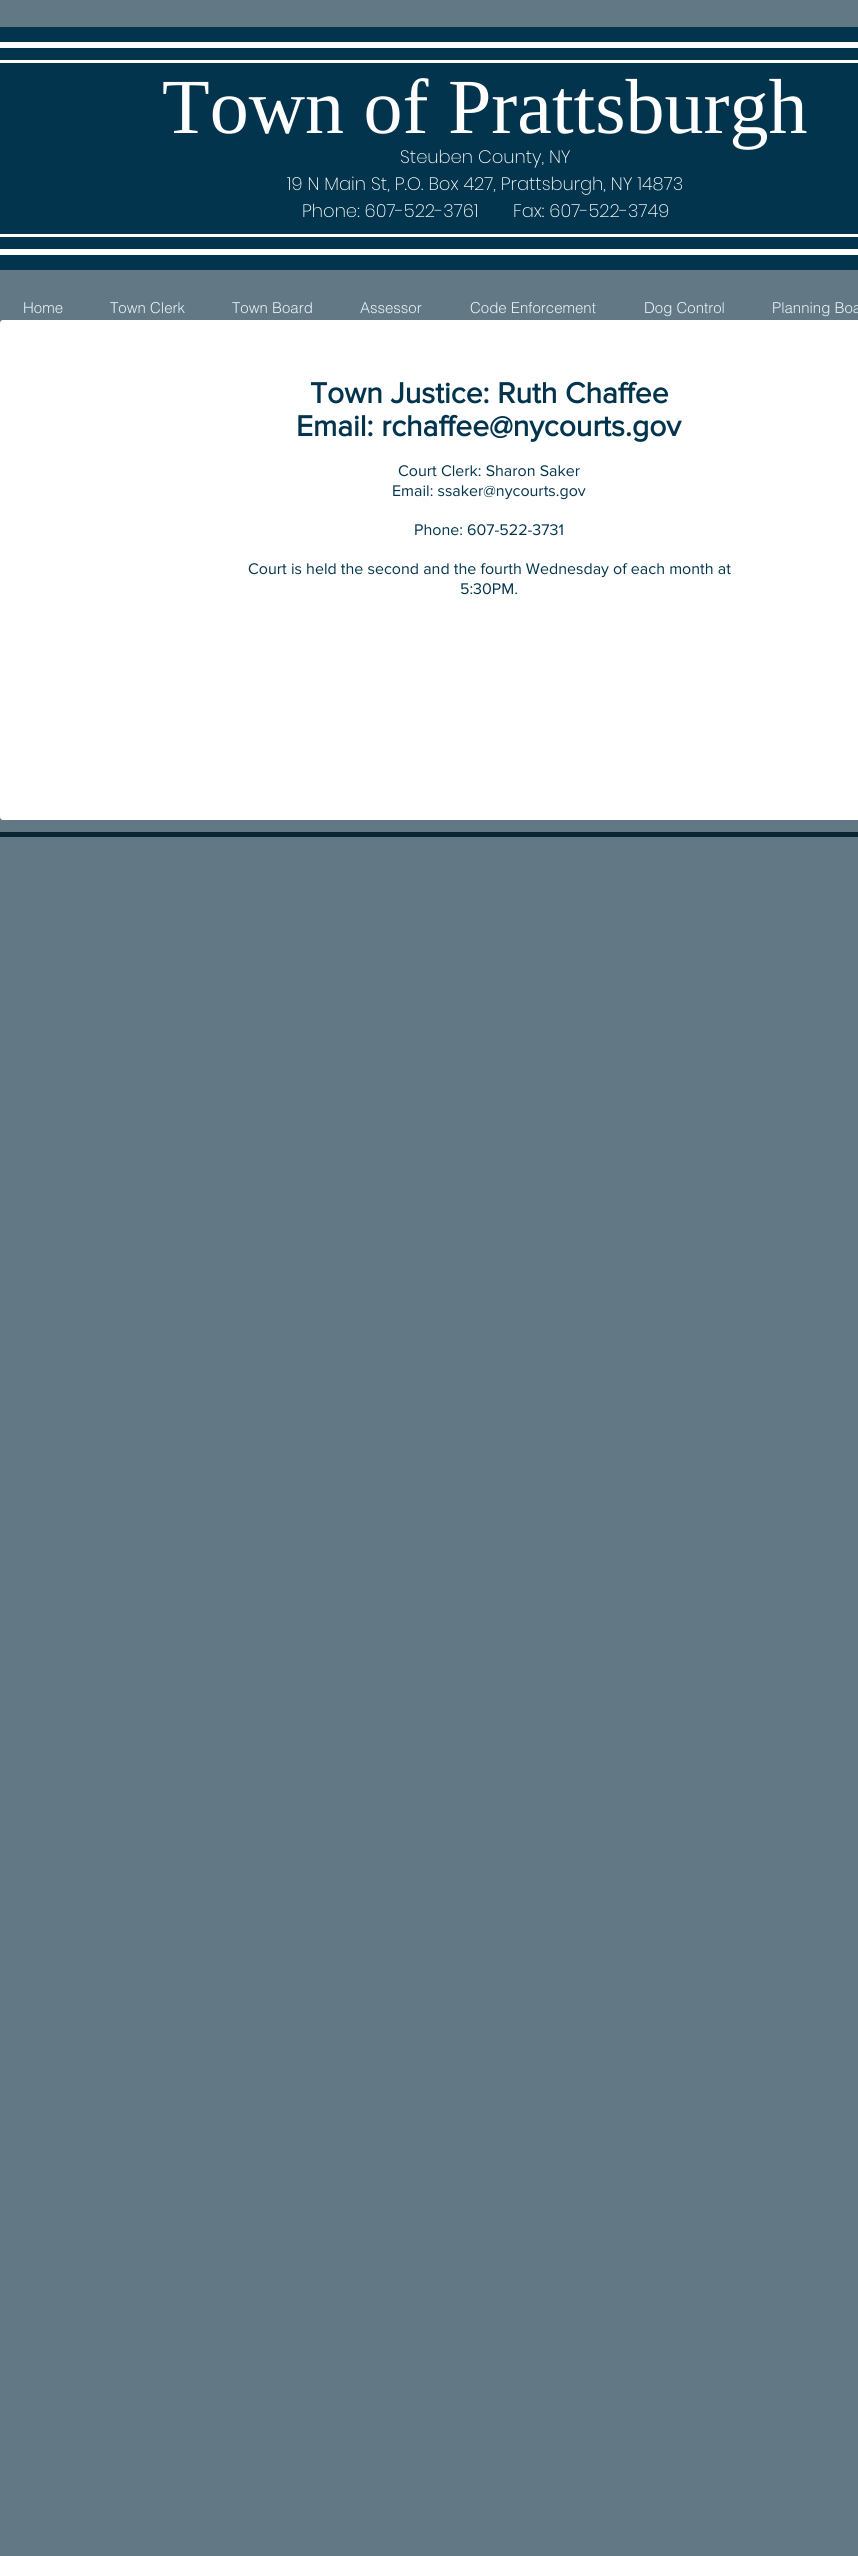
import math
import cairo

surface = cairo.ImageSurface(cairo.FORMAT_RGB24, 858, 2556)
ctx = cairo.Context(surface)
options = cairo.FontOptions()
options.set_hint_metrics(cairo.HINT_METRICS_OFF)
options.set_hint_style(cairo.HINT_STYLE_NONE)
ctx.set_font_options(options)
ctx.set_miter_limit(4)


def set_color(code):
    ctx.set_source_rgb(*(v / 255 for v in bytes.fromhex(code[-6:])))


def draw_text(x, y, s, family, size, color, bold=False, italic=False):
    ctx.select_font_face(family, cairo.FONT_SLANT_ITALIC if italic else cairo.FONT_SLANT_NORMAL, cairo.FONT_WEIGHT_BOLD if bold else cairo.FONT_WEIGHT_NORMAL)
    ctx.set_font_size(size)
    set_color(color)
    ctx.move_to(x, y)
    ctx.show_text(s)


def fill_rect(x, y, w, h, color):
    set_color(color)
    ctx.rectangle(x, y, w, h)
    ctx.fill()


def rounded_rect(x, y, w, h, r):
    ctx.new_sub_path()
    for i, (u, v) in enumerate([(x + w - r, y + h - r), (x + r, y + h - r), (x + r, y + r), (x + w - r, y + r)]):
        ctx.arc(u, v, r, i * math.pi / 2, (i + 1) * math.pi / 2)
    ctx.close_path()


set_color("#627884")
ctx.paint()
fill_rect(0, 27, 858, 243, "#02354d")
fill_rect(0, 42, 858, 6, "#ffffff")
fill_rect(0, 249, 858, 6, "#ffffff")
fill_rect(0, 60, 858, 3, "#ffffff")
fill_rect(0, 234, 858, 3, "#ffffff")
draw_text(162, 133, "Town of Prattsburgh", "Liberation Serif", 78, "#ffffff")
draw_text(400, 163, "Steuben County, NY", "Poppins ExtraLight", 18, "#ffffff")
draw_text(287, 190, "19 N Main St, P.O. Box 427, Prattsburgh, NY 14873", "Poppins ExtraLight", 18, "#ffffff")
draw_text(302, 217, "Phone: 607-522-3761       Fax: 607-522-3749", "Poppins ExtraLight", 18, "#ffffff")
draw_text(23, 313, "Home", "helvetica Light", 15, "#e9f1f5")
draw_text(110, 313, "Town Clerk", "helvetica Light", 15, "#e9f1f5")
draw_text(232, 313, "Town Board", "helvetica Light", 15, "#e9f1f5")
draw_text(360, 313, "Assessor", "helvetica Light", 15, "#e9f1f5")
draw_text(470, 313, "Code Enforcement", "helvetica Light", 15, "#e9f1f5")
draw_text(644, 313, "Dog Control", "helvetica Light", 15, "#e9f1f5")
draw_text(772, 313, "Planning Boa", "helvetica Light", 15, "#e9f1f5")
set_color("#ffffff")
rounded_rect(0, 320, 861, 500, 3)
ctx.fill()
draw_text(310, 403, "Town Justice: Ruth Chaffee", "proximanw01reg", 30, "#02354d", bold=True)
draw_text(296, 436, "Email: rchaffee@nycourts.gov", "proximanw01reg", 30, "#02354d", bold=True)
draw_text(398, 476, "Court Clerk: Sharon Saker", "proximanw01reg", 16, "#02354d")
draw_text(392, 496, "Email: ssaker@nycourts.gov", "proximanw01reg", 16, "#02354d")
draw_text(414, 535, "Phone: 607-522-3731", "proximanw01reg", 16, "#02354d")
draw_text(248, 574, "Court is held the second and the fourth Wednesday of each month at", "proximanw01reg", 16, "#02354d")
draw_text(460, 594, "5:30PM.", "proximanw01reg", 16, "#02354d")
fill_rect(0, 832, 858, 5, "#0b2533")
surface.write_to_png("output.png")
